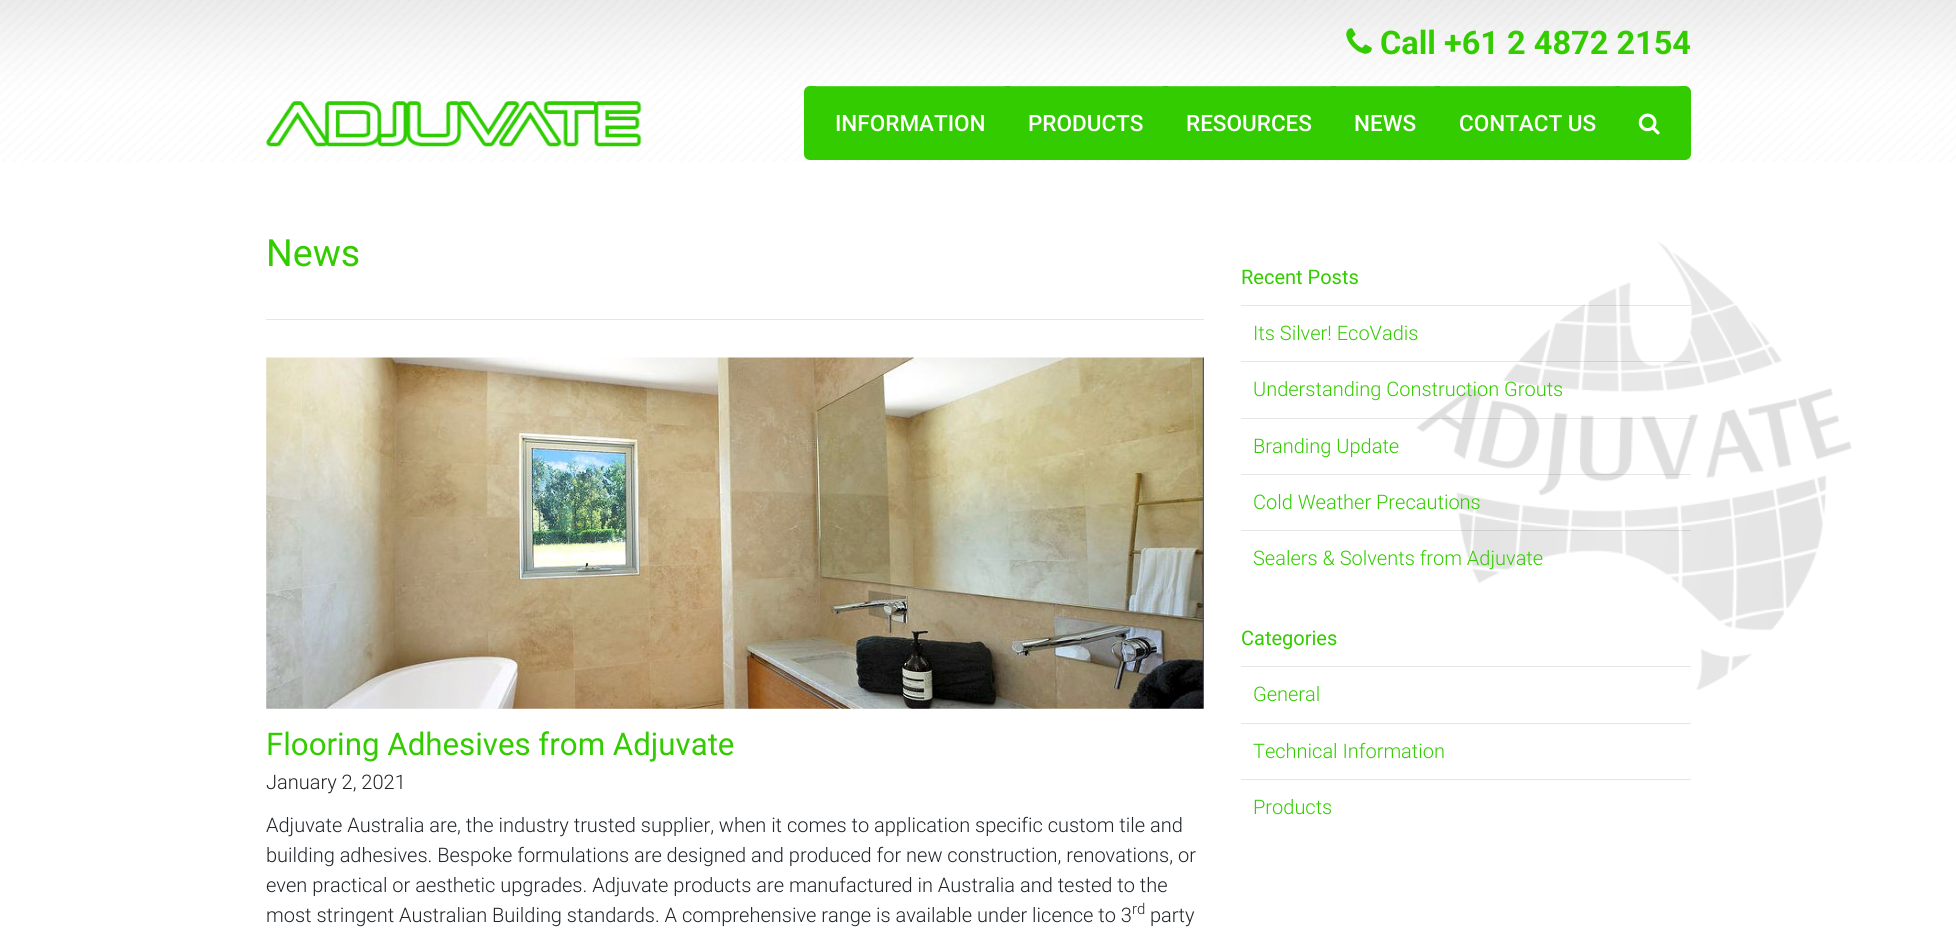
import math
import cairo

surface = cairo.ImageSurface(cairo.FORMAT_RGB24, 1956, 929)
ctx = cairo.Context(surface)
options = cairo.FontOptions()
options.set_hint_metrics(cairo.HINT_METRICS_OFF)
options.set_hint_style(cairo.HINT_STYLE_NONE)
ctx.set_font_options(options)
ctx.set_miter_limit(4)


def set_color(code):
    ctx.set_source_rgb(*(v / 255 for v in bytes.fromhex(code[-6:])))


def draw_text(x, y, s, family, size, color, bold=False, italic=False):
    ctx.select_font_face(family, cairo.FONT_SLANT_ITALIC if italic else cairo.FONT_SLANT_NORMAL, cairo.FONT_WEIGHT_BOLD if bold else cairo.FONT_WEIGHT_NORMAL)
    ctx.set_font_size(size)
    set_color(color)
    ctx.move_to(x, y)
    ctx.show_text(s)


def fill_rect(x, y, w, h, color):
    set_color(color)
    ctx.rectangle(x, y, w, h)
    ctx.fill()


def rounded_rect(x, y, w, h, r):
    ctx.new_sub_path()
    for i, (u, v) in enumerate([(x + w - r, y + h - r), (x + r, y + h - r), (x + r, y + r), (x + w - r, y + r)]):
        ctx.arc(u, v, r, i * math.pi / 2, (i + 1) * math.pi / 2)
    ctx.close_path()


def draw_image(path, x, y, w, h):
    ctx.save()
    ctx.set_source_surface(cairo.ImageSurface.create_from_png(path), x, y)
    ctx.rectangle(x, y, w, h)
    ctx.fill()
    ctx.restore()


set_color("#ffffff")
ctx.paint()
draw_image("assets/img1.png", 1416, 241, 436, 449)
draw_image("assets/img2.png", 0, 0, 1956, 162)
draw_image("assets/img3.png", 1346, 28, 26, 26)
draw_text(1380, 54, "Call +61 2 4872 2154", "Roboto", 32.5, "#33cc00", bold=True)
draw_image("assets/img4.png", 266, 101, 376, 46)
rounded_rect(804, 86, 887, 74, 6)
ctx.fill()
fill_rect(816, 86, 189, 1, "#5cd633")
draw_text(835, 131, "INFORMATION", "Roboto Medium", 22.5, "#ffffff")
fill_rect(1010, 86, 153, 1, "#5cd633")
draw_text(1028, 131, "PRODUCTS", "Roboto Medium", 22.5, "#ffffff")
fill_rect(1168, 86, 163, 1, "#5cd633")
draw_text(1186, 131, "RESOURCES", "Roboto Medium", 22.5, "#ffffff")
fill_rect(1336, 86, 99, 1, "#5cd633")
draw_text(1354, 131, "NEWS", "Roboto Medium", 22.5, "#ffffff")
fill_rect(1440, 86, 175, 1, "#5cd633")
draw_text(1459, 131, "CONTACT US", "Roboto Medium", 22.5, "#ffffff")
fill_rect(1620, 86, 59, 1, "#5cd633")
draw_image("assets/img5.png", 1638, 113, 22, 22)
draw_text(266, 266, "News", "Roboto", 37.5, "#33cc00")
fill_rect(266, 319, 938, 1, "#e6e6e6")
draw_image("assets/img6.png", 266, 357, 938, 352)
draw_text(266, 755, "Flooring Adhesives from Adjuvate", "Roboto", 31.25, "#33cc00")
draw_text(266, 789, "January 2, 2021", "Roboto Light", 20, "#212529")
draw_text(266, 832, "Adjuvate Australia are, the industry trusted supplier, when it comes to application specific custom tile and", "Roboto Light", 20, "#212529")
draw_text(266, 862, "building adhesives. Bespoke formulations are designed and produced for new construction, renovations, or", "Roboto Light", 20, "#212529")
draw_text(266, 892, "even practical or aesthetic upgrades. Adjuvate products are manufactured in Australia and tested to the", "Roboto Light", 20, "#212529")
draw_text(266, 922, "most stringent Australian Building standards. A comprehensive range is available under licence to 3", "Roboto Light", 20, "#212529")
draw_text(1132, 914, "rd", "Roboto Light", 15, "#212529")
draw_text(1150, 922, "party", "Roboto Light", 20, "#212529")
draw_text(1241, 284, "Recent Posts", "Roboto", 20, "#33cc00")
ctx.set_source_rgba(0, 0, 0, 0.1)
ctx.rectangle(1241, 305, 450, 1)
ctx.fill()
draw_text(1253, 340, "Its Silver! EcoVadis", "Roboto Light", 20, "#33cc00")
ctx.set_source_rgba(0, 0, 0, 0.1)
ctx.rectangle(1241, 361, 450, 1)
ctx.fill()
draw_text(1253, 396, "Understanding Construction Grouts", "Roboto Light", 20, "#33cc00")
ctx.set_source_rgba(0, 0, 0, 0.1)
ctx.rectangle(1241, 418, 450, 1)
ctx.fill()
draw_text(1253, 453, "Branding Update", "Roboto Light", 20, "#33cc00")
ctx.set_source_rgba(0, 0, 0, 0.1)
ctx.rectangle(1241, 474, 450, 1)
ctx.fill()
draw_text(1253, 509, "Cold Weather Precautions", "Roboto Light", 20, "#33cc00")
ctx.set_source_rgba(0, 0, 0, 0.1)
ctx.rectangle(1241, 530, 450, 1)
ctx.fill()
draw_text(1253, 565, "Sealers & Solvents from Adjuvate", "Roboto Light", 20, "#33cc00")
draw_text(1241, 645, "Categories", "Roboto", 20, "#33cc00")
fill_rect(1241, 666, 450, 1, "#e6e6e6")
draw_text(1253, 701, "General", "Roboto Light", 20, "#33cc00")
fill_rect(1241, 723, 450, 1, "#e6e6e6")
draw_text(1253, 758, "Technical Information", "Roboto Light", 20, "#33cc00")
fill_rect(1241, 779, 450, 1, "#e6e6e6")
draw_text(1253, 814, "Products", "Roboto Light", 20, "#33cc00")
surface.write_to_png("output.png")
